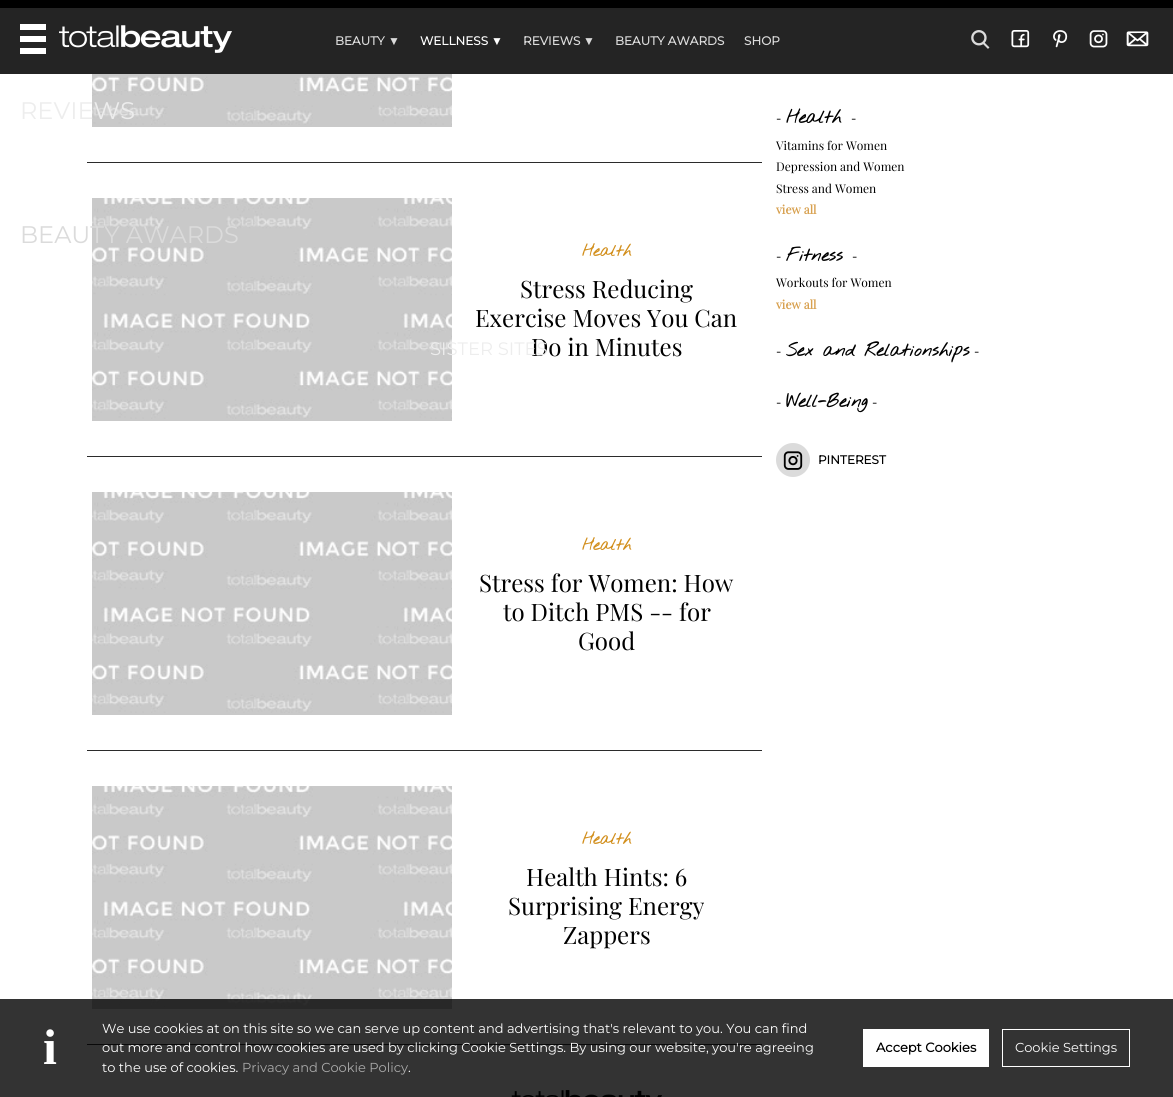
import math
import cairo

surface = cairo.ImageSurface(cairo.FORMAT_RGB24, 1173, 1097)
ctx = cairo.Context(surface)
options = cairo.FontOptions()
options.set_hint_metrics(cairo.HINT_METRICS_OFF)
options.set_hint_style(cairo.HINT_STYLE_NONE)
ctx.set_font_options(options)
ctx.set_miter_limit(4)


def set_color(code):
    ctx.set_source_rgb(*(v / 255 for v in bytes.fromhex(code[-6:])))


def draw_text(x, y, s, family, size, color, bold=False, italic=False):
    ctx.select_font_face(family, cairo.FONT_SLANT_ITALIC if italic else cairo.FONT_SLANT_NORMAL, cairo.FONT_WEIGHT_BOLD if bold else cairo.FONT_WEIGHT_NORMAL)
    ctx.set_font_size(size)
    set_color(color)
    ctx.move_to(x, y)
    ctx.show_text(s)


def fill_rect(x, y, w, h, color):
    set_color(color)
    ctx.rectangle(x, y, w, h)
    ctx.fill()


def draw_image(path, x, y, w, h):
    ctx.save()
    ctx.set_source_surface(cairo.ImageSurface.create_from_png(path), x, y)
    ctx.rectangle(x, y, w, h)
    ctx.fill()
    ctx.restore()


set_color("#ffffff")
ctx.paint()
fill_rect(0, 8, 1173, 66, "#242424")
fill_rect(0, 0, 1173, 8, "#000000")
fill_rect(20, 24, 26, 6, "#ffffff")
draw_image("assets/img1.png", 59, 25, 173, 28)
fill_rect(20, 36, 26, 6, "#ffffff")
fill_rect(20, 48, 26, 6, "#ffffff")
draw_text(335, 45, "BEAUTY", "Montserrat", 12, "#dbdbdb", bold=True)
draw_text(388, 45, "▼", "Liberation Sans", 12, "#dbdbdb", bold=True)
draw_text(420, 45, "WELLNESS", "Montserrat", 12, "#ffffff", bold=True)
draw_text(491, 45, "▼", "Liberation Sans", 12, "#ffffff", bold=True)
draw_text(523, 45, "REVIEWS", "Montserrat", 12, "#dbdbdb", bold=True)
draw_text(583, 45, "▼", "Liberation Sans", 12, "#dbdbdb", bold=True)
draw_text(615, 45, "BEAUTY AWARDS", "Montserrat", 12, "#dbdbdb", bold=True)
draw_text(744, 45, "SHOP", "Montserrat", 12, "#dbdbdb", bold=True)
draw_image("assets/img2.png", 971, 30, 19, 19)
draw_image("assets/img3.png", 1011, 30, 19, 18)
draw_image("assets/img4.png", 1053, 30, 15, 18)
draw_image("assets/img5.png", 1089, 30, 19, 18)
draw_image("assets/img6.png", 1126, 31, 23, 16)
draw_image("assets/img7.png", 92, 74, 360, 53)
draw_text(20, 119, "REVIEWS", "Montserrat", 24, "#ededed")
draw_image("assets/img8.png", 92, 198, 360, 223)
draw_text(20, 243, "BEAUTY AWARDS", "Montserrat", 24, "#dbdbdb")
draw_text(531, 356, "Do in Minutes", "Playfair Display", 24, "#000000")
draw_text(430, 355, "SISTER SITES", "Montserrat", 18, "#ededed")
fill_rect(87, 162, 675, 1, "#2b2b2b")
fill_rect(87, 456, 675, 1, "#2b2b2b")
draw_text(582, 256, "Health", "Nothing You Could Do", 16, "#d28f1d", bold=True)
draw_text(520, 298, "Stress Reducing", "Playfair Display", 24, "#000000")
draw_text(475, 327, "Exercise Moves You Can", "Playfair Display", 24, "#000000")
fill_rect(87, 750, 675, 1, "#2b2b2b")
draw_image("assets/img8.png", 92, 492, 360, 223)
draw_text(582, 550, "Health", "Nothing You Could Do", 16, "#d28f1d", bold=True)
draw_text(479, 592, "Stress for Women: How", "Playfair Display", 24, "#000000")
draw_text(503, 621, "to Ditch PMS -- for", "Playfair Display", 24, "#000000")
draw_text(578, 650, "Good", "Playfair Display", 24, "#000000")
fill_rect(87, 1044, 675, 1, "#2b2b2b")
draw_image("assets/img8.png", 92, 786, 360, 223)
draw_text(582, 844, "Health", "Nothing You Could Do", 16, "#d28f1d", bold=True)
draw_text(526, 886, "Health Hints: 6", "Playfair Display", 24, "#000000")
draw_text(508, 915, "Surprising Energy", "Playfair Display", 24, "#000000")
draw_text(563, 944, "Zappers", "Playfair Display", 24, "#000000")
draw_text(776, 123, "-", "Montserrat", 14, "#000000")
draw_text(786, 123, "Health", "Nothing You Could Do", 18, "#000000", bold=True)
draw_text(851, 123, "-", "Montserrat", 14, "#000000")
draw_text(776, 150, "Vitamins for Women", "Playfair Display", 12, "#000000")
draw_text(776, 171, "Depression and Women", "Playfair Display", 12, "#000000")
draw_text(776, 193, "Stress and Women", "Playfair Display", 12, "#000000")
draw_text(776, 214, "view all", "Playfair Display", 12, "#d8a150", bold=True)
draw_text(776, 261, "-", "Montserrat", 14, "#000000")
draw_text(786, 261, "Fitness", "Nothing You Could Do", 18, "#000000", bold=True)
draw_text(852, 261, "-", "Montserrat", 14, "#000000")
draw_text(776, 287, "Workouts for Women", "Playfair Display", 12, "#000000")
draw_text(776, 309, "view all", "Playfair Display", 12, "#d8a150", bold=True)
draw_text(776, 356, "-", "Montserrat", 14, "#000000")
draw_text(786, 356, "Sex and Relationships", "Nothing You Could Do", 18, "#000000", bold=True)
draw_text(974, 356, "-", "Montserrat", 14, "#000000")
draw_text(776, 407, "-", "Montserrat", 14, "#000000")
draw_text(786, 407, "Well-Being", "Nothing You Could Do", 18, "#000000", bold=True)
draw_text(872, 407, "-", "Montserrat", 14, "#000000")
set_color("#dbdbdb")
ctx.new_path()
ctx.arc(793, 460, 17, 0, 2 * math.pi)
ctx.fill()
draw_image("assets/img9.png", 783, 451, 20, 19)
draw_text(818, 464, "PINTEREST", "Montserrat", 12, "#000000", bold=True)
draw_image("assets/img10.png", 511, 1090, 151, 7)
ctx.set_source_rgba(0, 0, 0, 0.8)
ctx.rectangle(0, 999, 1173, 98)
ctx.fill()
draw_text(43, 1064, "i", "Liberation Serif", 50, "#ffffff", bold=True)
draw_text(102, 1033, "We use cookies at on this site so we can serve up content and advertising that's relevant to you. You can find", "Montserrat", 13, "#ffffff")
draw_text(102, 1052, "out more and control how cookies are used by clicking Cookie Settings. By using our website, you're agreeing", "Montserrat", 13, "#ffffff")
draw_text(102, 1072, "to the use of cookies.", "Montserrat", 13, "#ffffff")
draw_text(242, 1072, "Privacy and Cookie Policy", "Montserrat", 13, "#aaaaaa")
draw_text(408, 1072, ".", "Montserrat", 13, "#ffffff")
fill_rect(863, 1029, 126, 38, "#ffffff")
draw_text(876, 1052, "Accept Cookies", "Montserrat", 13, "#000000", bold=True)
ctx.rectangle(1002.5, 1029.5, 127, 37)
set_color("#ffffff")
ctx.set_line_width(1)
ctx.stroke()
draw_text(1015, 1052, "Cookie Settings", "Montserrat", 13, "#ffffff")
surface.write_to_png("output.png")
